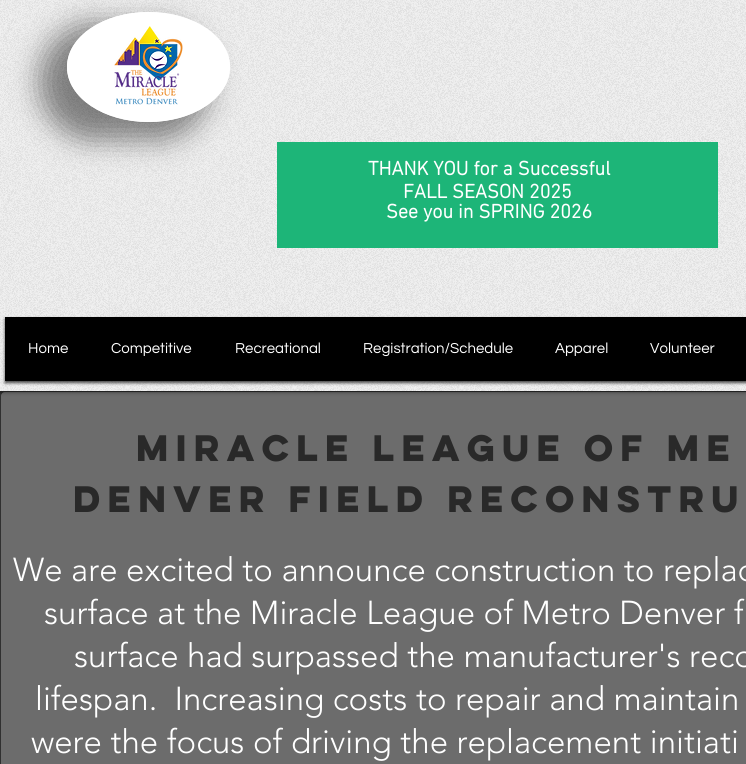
import math
import cairo

surface = cairo.ImageSurface(cairo.FORMAT_RGB24, 746, 764)
ctx = cairo.Context(surface)
options = cairo.FontOptions()
options.set_hint_metrics(cairo.HINT_METRICS_OFF)
options.set_hint_style(cairo.HINT_STYLE_NONE)
ctx.set_font_options(options)
ctx.set_miter_limit(4)


def set_color(code):
    ctx.set_source_rgb(*(v / 255 for v in bytes.fromhex(code[-6:])))


def draw_text(x, y, s, family, size, color, bold=False, italic=False):
    ctx.select_font_face(family, cairo.FONT_SLANT_ITALIC if italic else cairo.FONT_SLANT_NORMAL, cairo.FONT_WEIGHT_BOLD if bold else cairo.FONT_WEIGHT_NORMAL)
    ctx.set_font_size(size)
    set_color(color)
    ctx.move_to(x, y)
    ctx.show_text(s)


def fill_rect(x, y, w, h, color):
    set_color(color)
    ctx.rectangle(x, y, w, h)
    ctx.fill()


def rounded_rect(x, y, w, h, r):
    ctx.new_sub_path()
    for i, (u, v) in enumerate([(x + w - r, y + h - r), (x + r, y + h - r), (x + r, y + r), (x + w - r, y + r)]):
        ctx.arc(u, v, r, i * math.pi / 2, (i + 1) * math.pi / 2)
    ctx.close_path()


def draw_shadow(x, y, w, h, r, blur, alpha):
    ctx.push_group_with_content(cairo.CONTENT_ALPHA)
    ctx.set_operator(cairo.OPERATOR_SOURCE)
    for i in range(15, -16, -2):
        e = blur * i / 6
        if min(w, h) + 2 * e > 0:
            ctx.set_source_rgba(0, 0, 0, alpha * math.erfc((i - 1) / 8.5) / 2)
            rounded_rect(x - e, y - e, w + 2 * e, h + 2 * e, max(0, min(r + e + blur * .6, min(w, h) / 2 + e)))
            ctx.fill()
    ctx.mask(ctx.pop_group())


def draw_image(path, x, y, w, h):
    ctx.save()
    ctx.set_source_surface(cairo.ImageSurface.create_from_png(path), x, y)
    ctx.rectangle(x, y, w, h)
    ctx.fill()
    ctx.restore()


set_color("#303030")
ctx.paint()
set_color("#6c6c6c")
rounded_rect(0.5, 391.5, 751, 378, 4.5)
ctx.fill_preserve()
set_color("#303030")
ctx.set_line_width(1)
ctx.stroke()
set_color("#000000")
draw_shadow(0, 0, 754, 391, 0, 2.5, 0.7)
fill_rect(0, 0, 746, 391, "#f0f0f0")
draw_image("assets/img1.png", 0, 0, 746, 391)
set_color("#000000")
draw_shadow(40, 24, 169, 116, 58, 14.5, 0.46)
set_color("#ffffff")
ctx.new_path()
ctx.move_to(148.5, 12)
ctx.curve_to(193.5, 12, 230, 36.5, 230, 67)
ctx.curve_to(230, 97.5, 193.5, 122, 148.5, 122)
ctx.curve_to(103.5, 122, 67, 97.5, 67, 67)
ctx.curve_to(67, 36.5, 103.5, 12, 148.5, 12)
ctx.close_path()
ctx.fill()
ctx.new_path()
ctx.move_to(148.5, 15)
ctx.curve_to(192, 15, 227, 38.5, 227, 67)
ctx.curve_to(227, 95.5, 192, 119, 148.5, 119)
ctx.curve_to(105, 119, 70, 95.5, 70, 67)
ctx.curve_to(70, 38.5, 105, 15, 148.5, 15)
ctx.close_path()
ctx.set_line_width(6)
ctx.stroke()
draw_image("assets/img2.png", 114, 26, 69, 79)
fill_rect(277, 142, 441, 106, "#1db578")
draw_text(368, 175, "THANK YOU for a Successful", "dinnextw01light", 20, "#ffffff", bold=True)
draw_text(403, 198, "FALL SEASON 2025", "dinnextw01light", 20, "#ffffff", bold=True)
draw_text(386, 218, "See you in SPRING 2026", "dinnextw01light", 20, "#ffffff", bold=True)
set_color("#000000")
draw_shadow(5, 319, 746, 64, 0, 1.5, 0.7)
fill_rect(5, 317, 741, 64, "#000000")
draw_text(28, 353, "Home", "Questrial", 15, "#ffffff")
draw_text(111, 353, "Competitive", "Questrial", 15, "#ffffff")
draw_text(235, 353, "Recreational", "Questrial", 15, "#ffffff")
draw_text(363, 353, "Registration/Schedule", "Questrial", 15, "#ffffff")
draw_text(555, 353, "Apparel", "Questrial", 15, "#ffffff")
draw_text(650, 353, "Volunteer", "Questrial", 15, "#ffffff")
draw_text(136, 461, "Miracle League of Me", "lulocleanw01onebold", 33, "#292929", bold=True)
draw_text(73, 512, "Denver field Reconstru", "lulocleanw01onebold", 33, "#292929", bold=True)
draw_text(13, 581, "We are excited to announce construction to replac", "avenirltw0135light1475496 Light", 33, "#ffffff")
draw_text(44, 624, "surface at the Miracle League of Metro Denver f", "avenirltw0135light1475496 Light", 33, "#ffffff")
draw_text(74, 667, "surface had surpassed the manufacturer's reco", "avenirltw0135light1475496 Light", 33, "#ffffff")
draw_text(35, 710, "lifespan.  Increasing costs to repair and maintain", "avenirltw0135light1475496 Light", 33, "#ffffff")
draw_text(31, 753, "were the focus of driving the replacement initiati", "avenirltw0135light1475496 Light", 33, "#ffffff")
surface.write_to_png("output.png")
